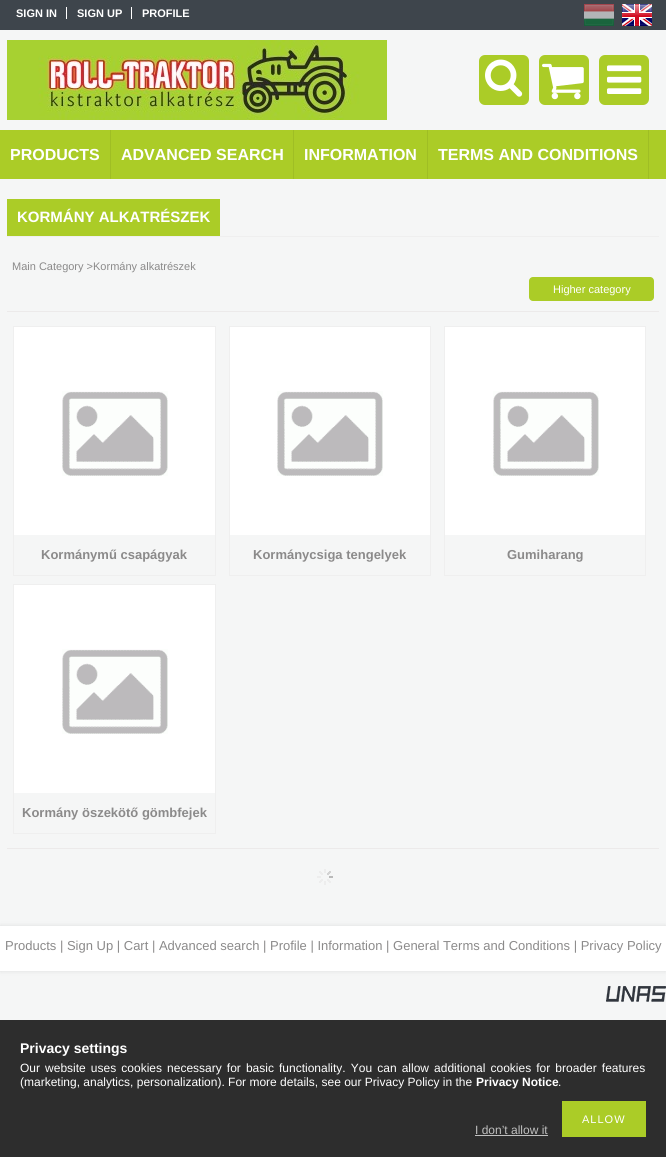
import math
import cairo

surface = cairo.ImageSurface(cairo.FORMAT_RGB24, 666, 1157)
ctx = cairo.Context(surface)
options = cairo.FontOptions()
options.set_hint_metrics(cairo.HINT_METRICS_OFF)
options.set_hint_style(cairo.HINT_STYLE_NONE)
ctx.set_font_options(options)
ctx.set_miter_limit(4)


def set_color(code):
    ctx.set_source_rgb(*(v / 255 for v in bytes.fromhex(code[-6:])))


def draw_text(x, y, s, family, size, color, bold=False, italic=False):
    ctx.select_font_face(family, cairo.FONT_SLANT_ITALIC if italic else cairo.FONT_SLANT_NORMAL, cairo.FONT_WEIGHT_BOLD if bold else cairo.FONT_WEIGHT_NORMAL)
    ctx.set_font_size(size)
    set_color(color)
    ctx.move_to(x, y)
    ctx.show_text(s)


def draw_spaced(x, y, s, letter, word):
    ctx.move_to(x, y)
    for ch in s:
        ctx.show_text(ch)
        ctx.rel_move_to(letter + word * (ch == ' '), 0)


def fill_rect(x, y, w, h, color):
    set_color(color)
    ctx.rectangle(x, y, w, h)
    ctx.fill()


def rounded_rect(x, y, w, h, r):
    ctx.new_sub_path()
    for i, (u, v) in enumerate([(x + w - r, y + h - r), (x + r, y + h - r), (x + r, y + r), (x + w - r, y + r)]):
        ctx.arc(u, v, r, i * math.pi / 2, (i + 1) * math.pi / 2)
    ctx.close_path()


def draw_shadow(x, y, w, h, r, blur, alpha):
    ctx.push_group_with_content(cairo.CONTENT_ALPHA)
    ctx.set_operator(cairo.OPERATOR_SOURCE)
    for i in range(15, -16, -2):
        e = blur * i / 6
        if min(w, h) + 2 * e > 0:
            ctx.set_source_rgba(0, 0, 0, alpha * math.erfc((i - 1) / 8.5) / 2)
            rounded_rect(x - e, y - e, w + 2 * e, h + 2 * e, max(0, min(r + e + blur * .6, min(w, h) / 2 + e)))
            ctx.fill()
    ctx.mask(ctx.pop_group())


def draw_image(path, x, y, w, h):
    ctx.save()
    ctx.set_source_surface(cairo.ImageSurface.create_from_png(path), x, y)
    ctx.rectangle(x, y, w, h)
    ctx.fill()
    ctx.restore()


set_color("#f5f6f6")
ctx.paint()
fill_rect(0, 0, 666, 30, "#3e454c")
draw_text(16, 17, "SIGN IN", "Liberation Sans", 11, "#ffffff", bold=True)
fill_rect(66, 7, 1, 12, "#ffffff")
draw_text(77, 17, "SIGN UP", "Liberation Sans", 11, "#ffffff", bold=True)
fill_rect(131, 7, 1, 12, "#ffffff")
draw_text(142, 17, "PROFILE", "Liberation Sans", 11, "#ffffff", bold=True)
draw_image("assets/img1.png", 584, 4, 30, 22)
draw_image("assets/img2.png", 622, 4, 30, 22)
draw_image("assets/img3.png", 7, 40, 380, 80)
set_color("#abcc27")
rounded_rect(479, 55, 50, 50, 6)
ctx.fill()
draw_image("assets/img4.png", 485, 59, 38, 38)
rounded_rect(539, 55, 50, 50, 6)
ctx.fill()
draw_image("assets/img5.png", 542, 63, 42, 37)
rounded_rect(599, 55, 50, 50, 6)
ctx.fill()
draw_image("assets/img6.png", 607, 65, 35, 29)
fill_rect(0, 130, 666, 49, "#abcc27")
fill_rect(110, 130, 1, 49, "#9fbe24")
draw_text(10, 160, "PRODUCTS", "Liberation Sans", 16, "#ffffff", bold=True)
fill_rect(293, 130, 1, 49, "#9fbe24")
draw_text(121, 160, "ADVANCED SEARCH", "Liberation Sans", 16, "#ffffff", bold=True)
fill_rect(427, 130, 1, 49, "#9fbe24")
draw_text(304, 160, "INFORMATION", "Liberation Sans", 16, "#ffffff", bold=True)
fill_rect(648, 130, 1, 49, "#9fbe24")
draw_text(438, 160, "TERMS AND CONDITIONS", "Liberation Sans", 16, "#ffffff", bold=True)
fill_rect(7, 236, 652, 1, "#efefef")
fill_rect(7, 199, 213, 37, "#abcc27")
draw_text(17, 222, "KORMÁNY ALKATRÉSZEK", "Liberation Sans", 15, "#ffffff", bold=True)
draw_text(12, 270, "Main Category >Kormány alkatrészek", "Liberation Sans", 11, "#8b8a8a")
set_color("#abcc27")
rounded_rect(529, 277, 125, 24, 4)
ctx.fill()
draw_text(553, 293, "Higher category", "Liberation Sans", 11, "#ffffff")
fill_rect(7, 311, 652, 1, "#eceaea")
fill_rect(14, 327, 201, 208, "#ffffff")
ctx.rectangle(13.5, 326.5, 202, 249)
set_color("#efefef")
ctx.set_line_width(1)
ctx.stroke()
draw_image("assets/img7.png", 62, 391, 106, 85)
draw_text(41, 559, "Kormánymű csapágyak", "Liberation Sans", 13, "#8b8a8a", bold=True)
fill_rect(230, 327, 200, 208, "#ffffff")
ctx.rectangle(229.5, 326.5, 201, 249)
set_color("#efefef")
ctx.stroke()
draw_image("assets/img7.png", 277, 391, 106, 85)
draw_text(253, 559, "Kormánycsiga tengelyek", "Liberation Sans", 13, "#8b8a8a", bold=True)
fill_rect(445, 327, 200, 208, "#ffffff")
ctx.rectangle(444.5, 326.5, 201, 249)
set_color("#efefef")
ctx.stroke()
draw_image("assets/img7.png", 493, 391, 106, 85)
draw_text(507, 559, "Gumiharang", "Liberation Sans", 13, "#8b8a8a", bold=True)
fill_rect(14, 585, 201, 208, "#ffffff")
ctx.rectangle(13.5, 584.5, 202, 249)
set_color("#efefef")
ctx.stroke()
draw_image("assets/img7.png", 62, 649, 106, 85)
draw_text(22, 817, "Kormány öszekötő gömbfejek", "Liberation Sans", 13, "#8b8a8a", bold=True)
fill_rect(7, 848, 652, 1, "#eceaea")
draw_image("assets/img8.png", 317, 869, 16, 16)
set_color("#000000")
draw_shadow(0, 926, 666, 45, 0, 2.5, 0.1)
fill_rect(0, 926, 666, 45, "#ffffff")
draw_text(5, 950, "Products | Sign Up | Cart | Advanced search | Profile | Information | General Terms and Conditions | Privacy Policy", "Liberation Sans", 13, "#8b8a8a")
draw_image("assets/img9.png", 606, 986, 60, 16)
fill_rect(0, 1020, 666, 137, "#2d2d2d")
draw_text(20, 1053, "Privacy settings", "Liberation Sans", 14, "#ffffff", bold=True)
ctx.select_font_face("Liberation Sans")
ctx.set_font_size(12)
draw_spaced(20, 1072, "Our website uses cookies necessary for basic functionality. You can allow additional cookies for broader features", 0, 1.75)
draw_text(20, 1086, "(marketing, analytics, personalization). For more details, see our Privacy Policy in the", "Liberation Sans", 12, "#ffffff")
draw_text(476, 1086, "Privacy Notice", "Liberation Sans", 12, "#ffffff", bold=True)
draw_text(558, 1086, ".", "Liberation Sans", 12, "#ffffff")
fill_rect(562, 1101, 84, 36, "#abcc27")
ctx.set_font_size(11)
set_color("#ffffff")
draw_spaced(582, 1123, "ALLOW", 1, 0)
draw_text(475, 1134, "I don’t allow it", "Liberation Sans", 12, "#c0c0c0")
fill_rect(475, 1135, 73, 1, "#c0c0c0")
surface.write_to_png("output.png")
